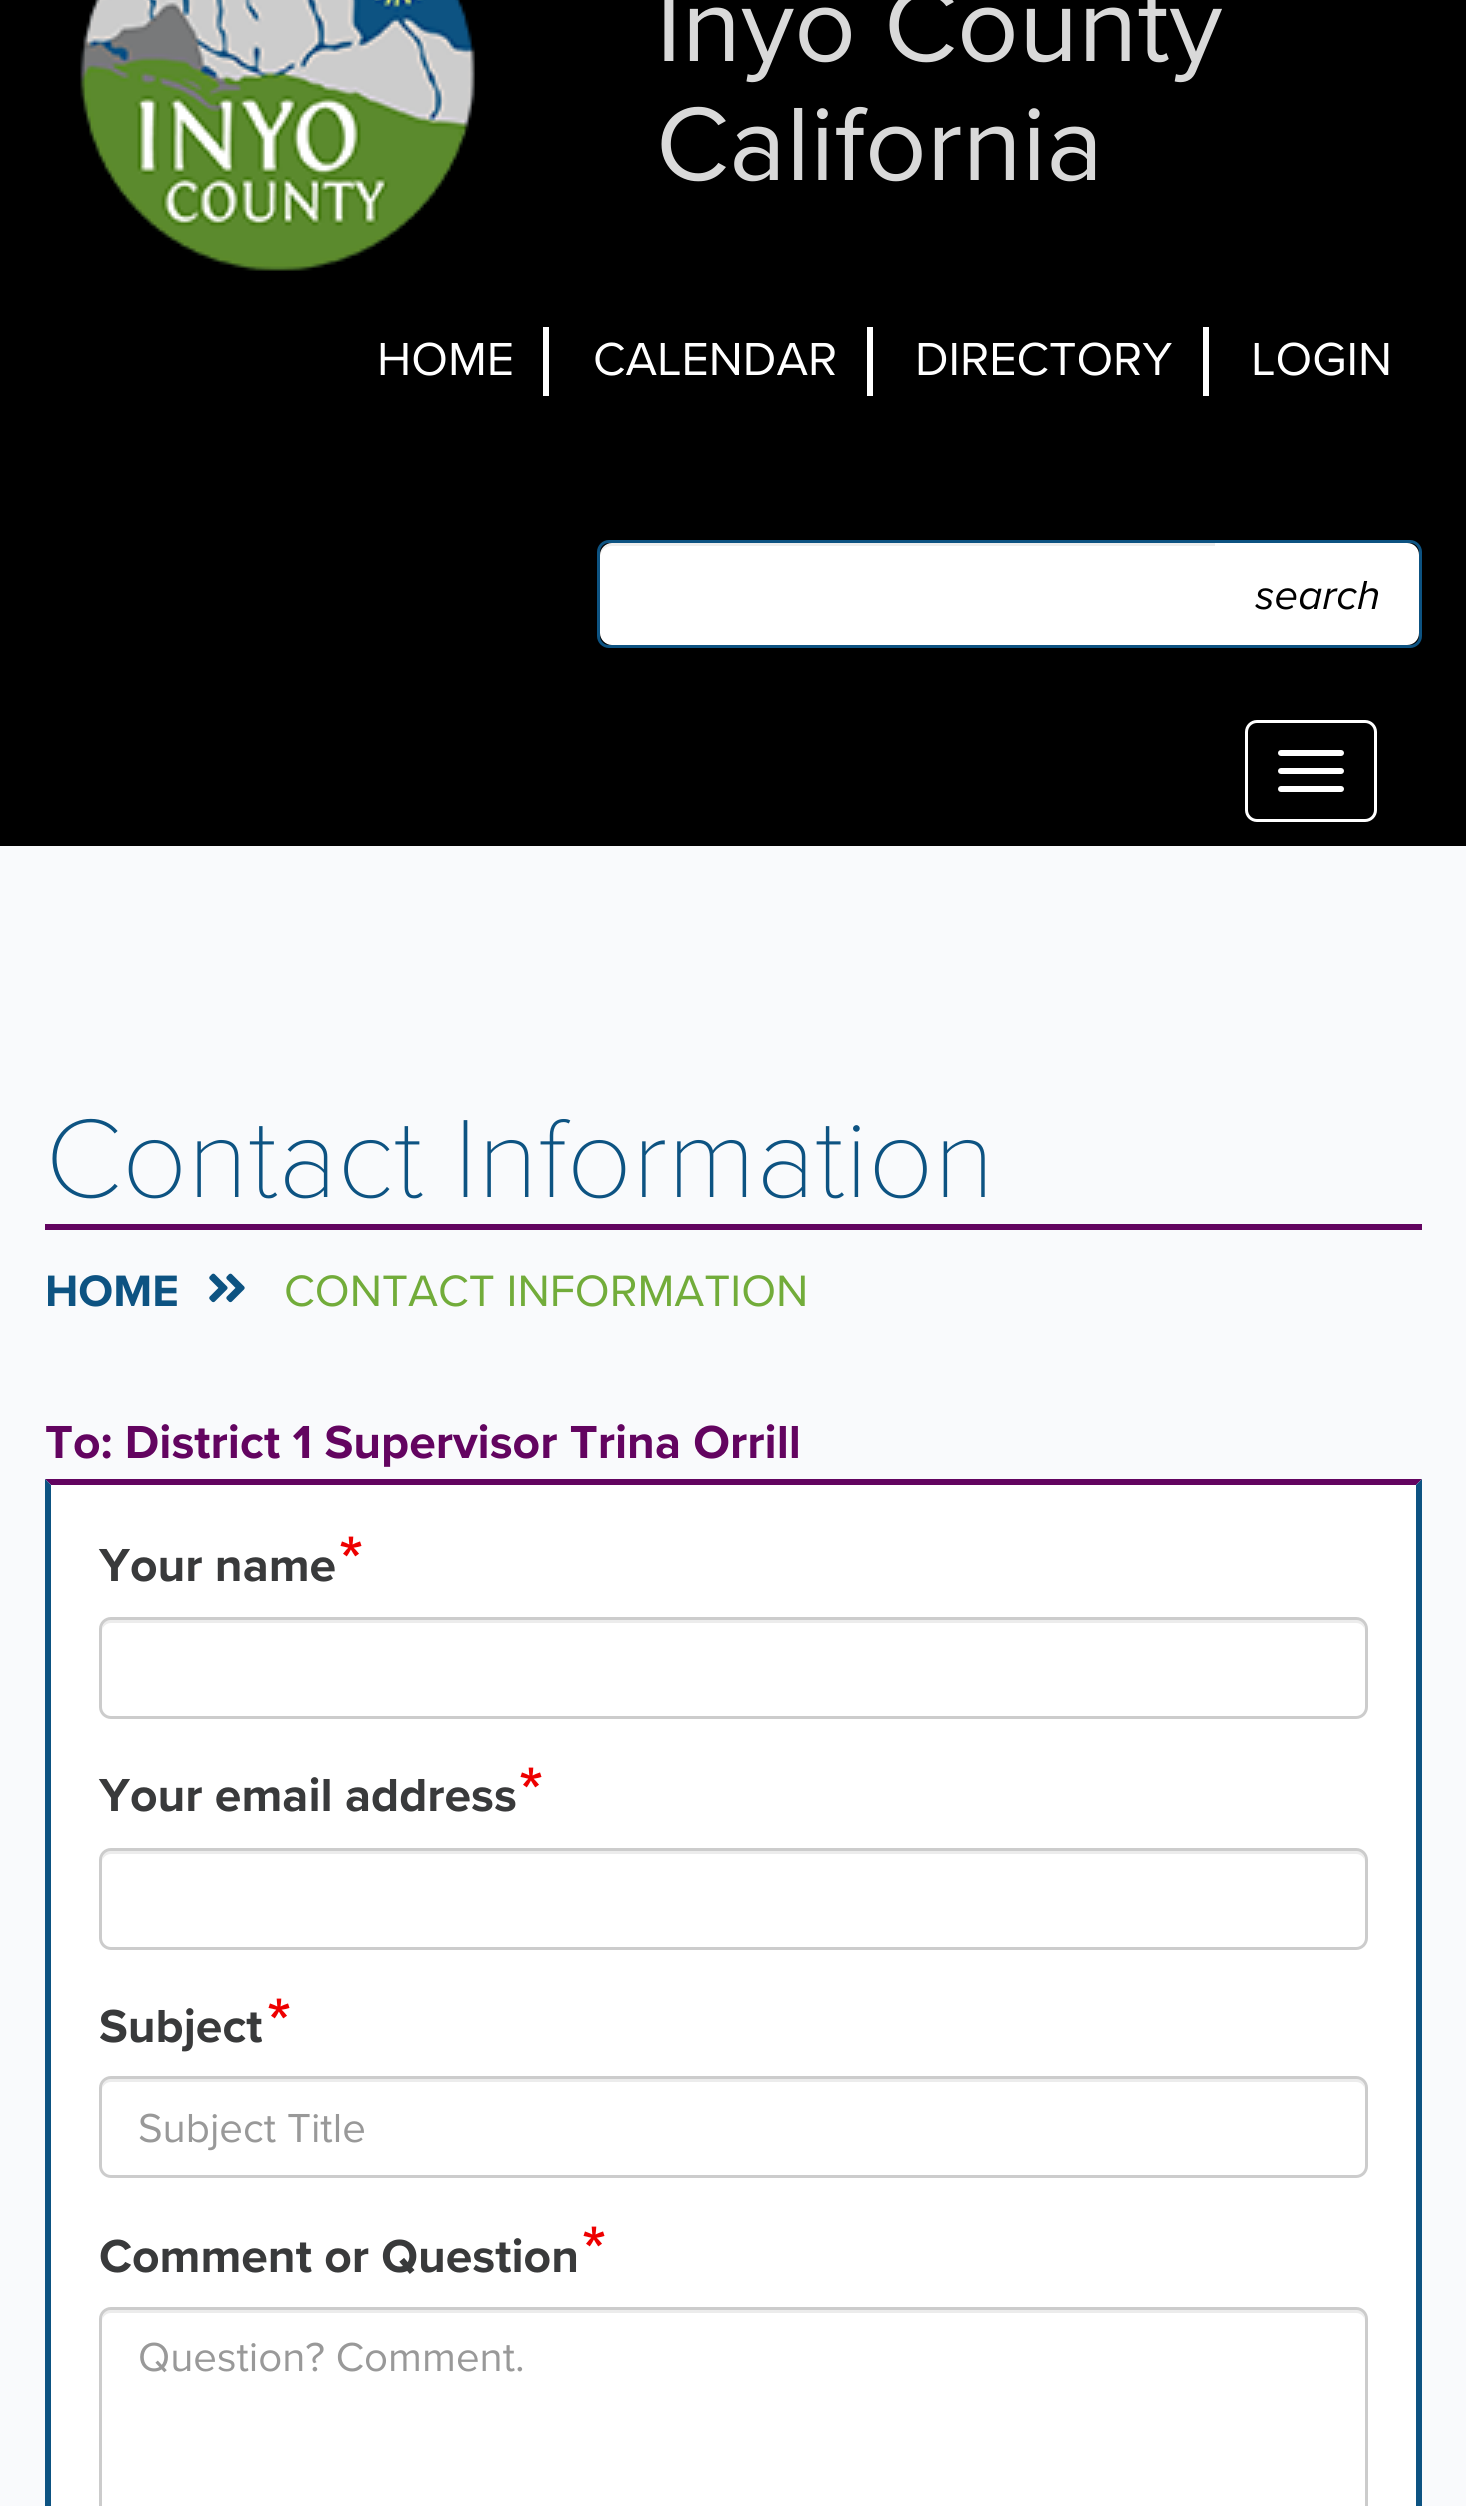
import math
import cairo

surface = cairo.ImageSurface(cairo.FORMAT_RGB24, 1466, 2506)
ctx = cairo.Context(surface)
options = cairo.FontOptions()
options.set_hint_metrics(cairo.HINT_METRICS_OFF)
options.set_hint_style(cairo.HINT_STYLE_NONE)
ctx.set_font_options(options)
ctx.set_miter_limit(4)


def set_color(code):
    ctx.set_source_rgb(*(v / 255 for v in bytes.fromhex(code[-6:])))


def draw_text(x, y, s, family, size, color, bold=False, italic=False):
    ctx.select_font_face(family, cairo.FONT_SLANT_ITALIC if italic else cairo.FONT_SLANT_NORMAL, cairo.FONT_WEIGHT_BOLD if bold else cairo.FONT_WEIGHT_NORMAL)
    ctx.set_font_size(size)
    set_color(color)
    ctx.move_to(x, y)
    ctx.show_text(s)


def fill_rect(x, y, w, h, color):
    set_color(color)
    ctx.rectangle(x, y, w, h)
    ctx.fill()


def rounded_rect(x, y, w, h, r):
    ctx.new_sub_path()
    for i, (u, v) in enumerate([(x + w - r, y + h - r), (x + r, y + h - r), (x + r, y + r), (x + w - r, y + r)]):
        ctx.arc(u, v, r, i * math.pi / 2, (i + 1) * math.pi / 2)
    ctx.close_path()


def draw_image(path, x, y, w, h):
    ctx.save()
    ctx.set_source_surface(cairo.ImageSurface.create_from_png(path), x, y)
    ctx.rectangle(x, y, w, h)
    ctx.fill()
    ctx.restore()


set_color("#f9fafc")
ctx.paint()
fill_rect(0, 0, 1466, 846, "#000000")
draw_image("assets/img1.png", 80, 0, 395, 271)
draw_text(656, 61, "Inyo County", "Proxima Nova", 108, "#d9d9d9")
draw_text(656, 180, "California", "Proxima Nova", 108, "#d9d9d9")
fill_rect(543, 327, 6, 69, "#ffffff")
draw_text(377, 375, "HOME", "Proxima Nova", 48, "#ffffff")
fill_rect(867, 327, 6, 69, "#ffffff")
draw_text(593, 375, "CALENDAR", "Proxima Nova", 48, "#ffffff")
fill_rect(1203, 327, 6, 69, "#ffffff")
draw_text(915, 375, "DIRECTORY", "Proxima Nova", 48, "#ffffff")
draw_text(1251, 375, "LOGIN", "Proxima Nova", 48, "#ffffff")
rounded_rect(598.5, 541.5, 822, 105, 10.5)
set_color("#0d5382")
ctx.set_line_width(3)
ctx.stroke()
set_color("#ffffff")
ctx.new_path()
ctx.move_to(612, 543)
ctx.line_to(1218, 543)
ctx.line_to(1218, 645)
ctx.line_to(612, 645)
ctx.curve_to(605.5, 645, 600, 639.5, 600, 633)
ctx.line_to(600, 555)
ctx.curve_to(600, 548.5, 605.5, 543, 612, 543)
ctx.close_path()
ctx.fill()
ctx.set_source_rgba(0, 0, 0, 0.07)
ctx.new_path()
ctx.move_to(612, 546)
ctx.line_to(1218, 546)
ctx.line_to(1218, 543)
ctx.line_to(612, 543)
ctx.curve_to(605, 543, 600, 548, 600, 555)
ctx.line_to(600, 558)
ctx.curve_to(600, 551, 605, 546, 612, 546)
ctx.close_path()
ctx.fill()
set_color("#ffffff")
ctx.new_path()
ctx.move_to(1216.5, 544.5)
ctx.line_to(1407, 544.5)
ctx.curve_to(1413, 544.5, 1417.5, 549, 1417.5, 555)
ctx.line_to(1417.5, 633)
ctx.curve_to(1417.5, 639, 1413, 643.5, 1407, 643.5)
ctx.line_to(1216.5, 643.5)
ctx.close_path()
ctx.fill_preserve()
ctx.stroke()
draw_text(1255, 609, "search", "Proxima Nova", 42, "#000000", italic=True)
rounded_rect(1246.5, 721.5, 129, 99, 10.5)
set_color("#ffffff")
ctx.stroke()
rounded_rect(1278, 750, 66, 6, 3)
ctx.fill()
rounded_rect(1278, 768, 66, 6, 3)
ctx.fill()
rounded_rect(1278, 786, 66, 6, 3)
ctx.fill()
fill_rect(45, 1224, 1377, 6, "#630460")
draw_text(45, 1197, "Contact Information", "Proxima Nova Thin", 115.25, "#0d5382")
draw_text(45, 1306, "HOME", "Proxima Nova", 45.6, "#0d5382", bold=True)
draw_image("assets/img2.png", 209, 1273, 36, 30)
draw_text(284, 1306, "CONTACT INFORMATION", "Proxima Nova", 45.6, "#72ac3a")
draw_text(45, 1458, "To: District 1 Supervisor Trina Orrill", "Proxima Nova", 48, "#630460", bold=True)
fill_rect(45, 1479, 1377, 1027, "#ffffff")
set_color("#630460")
ctx.new_path()
ctx.move_to(45, 1479)
ctx.line_to(51, 1485)
ctx.line_to(1416, 1485)
ctx.line_to(1422, 1479)
ctx.close_path()
ctx.fill()
set_color("#0d5382")
ctx.new_path()
ctx.move_to(1422, 1479)
ctx.line_to(1416, 1485)
ctx.line_to(1416, 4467)
ctx.curve_to(1416, 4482, 1410, 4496, 1400, 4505)
ctx.line_to(1404, 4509)
ctx.curve_to(1415, 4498, 1422, 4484, 1422, 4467)
ctx.close_path()
ctx.fill()
ctx.new_path()
ctx.move_to(51, 1485)
ctx.line_to(45, 1479)
ctx.line_to(45, 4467)
ctx.curve_to(45, 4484, 52, 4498, 63, 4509)
ctx.line_to(67, 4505)
ctx.curve_to(57, 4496, 51, 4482, 51, 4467)
ctx.close_path()
ctx.fill()
draw_image("assets/img3.png", 340, 1536, 22, 21)
draw_text(99, 1581, "Your name", "Proxima Nova", 48, "#393a3b", bold=True)
set_color("#ececec")
ctx.new_path()
ctx.move_to(111, 1623)
ctx.line_to(1356, 1623)
ctx.curve_to(1361, 1623, 1365, 1627, 1365, 1632)
ctx.curve_to(1365, 1626, 1363, 1620, 1356, 1620)
ctx.line_to(111, 1620)
ctx.curve_to(104, 1620, 102, 1626, 102, 1632)
ctx.curve_to(102, 1627, 106, 1623, 111, 1623)
ctx.close_path()
ctx.fill()
rounded_rect(100.5, 1618.5, 1266, 99, 10.5)
set_color("#cccccc")
ctx.stroke()
draw_text(99, 1811, "Your email address", "Proxima Nova", 48, "#393a3b", bold=True)
draw_image("assets/img3.png", 520, 1767, 22, 21)
set_color("#ececec")
ctx.new_path()
ctx.move_to(111, 1854)
ctx.line_to(1356, 1854)
ctx.curve_to(1361, 1854, 1365, 1858, 1365, 1863)
ctx.curve_to(1365, 1857, 1363, 1851, 1356, 1851)
ctx.line_to(111, 1851)
ctx.curve_to(104, 1851, 102, 1857, 102, 1863)
ctx.curve_to(102, 1858, 106, 1854, 111, 1854)
ctx.close_path()
ctx.fill()
rounded_rect(100.5, 1849.5, 1266, 99, 10.5)
set_color("#cccccc")
ctx.stroke()
draw_text(99, 2042, "Subject", "Proxima Nova", 48, "#393a3b", bold=True)
draw_image("assets/img3.png", 268, 1998, 22, 21)
set_color("#ececec")
ctx.new_path()
ctx.move_to(111, 2082)
ctx.line_to(1356, 2082)
ctx.curve_to(1361, 2082, 1365, 2086, 1365, 2091)
ctx.curve_to(1365, 2085, 1363, 2079, 1356, 2079)
ctx.line_to(111, 2079)
ctx.curve_to(104, 2079, 102, 2085, 102, 2091)
ctx.curve_to(102, 2086, 106, 2082, 111, 2082)
ctx.close_path()
ctx.fill()
rounded_rect(100.5, 2077.5, 1266, 99, 10.5)
set_color("#cccccc")
ctx.stroke()
draw_text(138, 2142, "Subject Title", "Proxima Nova", 42, "#999999")
draw_text(99, 2272, "Comment or Question", "Proxima Nova", 48, "#393a3b", bold=True)
draw_image("assets/img3.png", 583, 2226, 22, 21)
set_color("#ececec")
ctx.new_path()
ctx.move_to(111, 2313)
ctx.line_to(1356, 2313)
ctx.curve_to(1361, 2313, 1365, 2317, 1365, 2322)
ctx.curve_to(1365, 2316, 1363, 2310, 1356, 2310)
ctx.line_to(111, 2310)
ctx.curve_to(104, 2310, 102, 2316, 102, 2322)
ctx.curve_to(102, 2317, 106, 2313, 111, 2313)
ctx.close_path()
ctx.fill()
rounded_rect(100.5, 2308.5, 1266, 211, 10.5)
set_color("#cccccc")
ctx.stroke()
draw_text(138, 2371, "Question? Comment.", "Proxima Nova", 42, "#999999")
surface.write_to_png("output.png")
